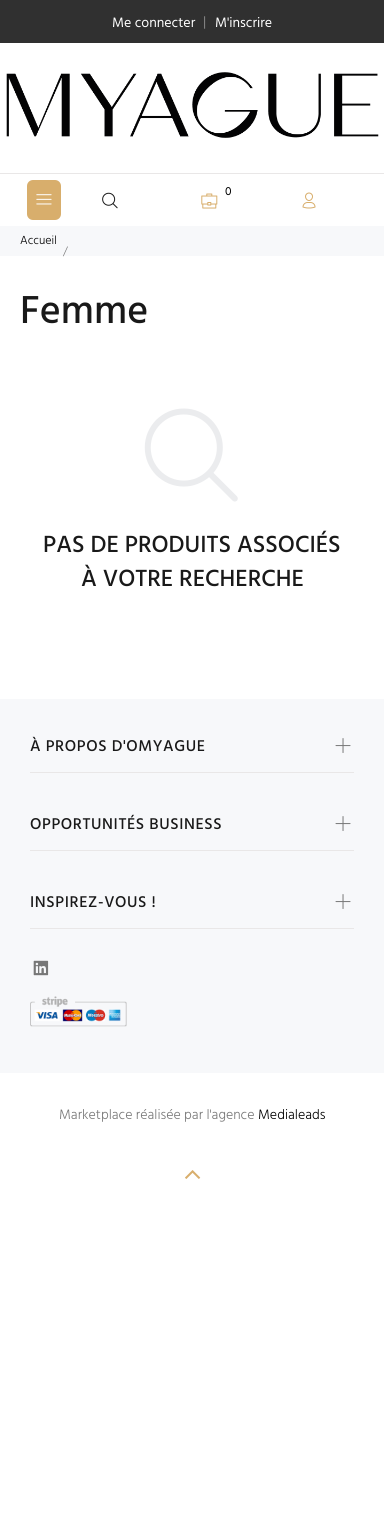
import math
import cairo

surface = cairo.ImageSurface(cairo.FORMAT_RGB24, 384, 1515)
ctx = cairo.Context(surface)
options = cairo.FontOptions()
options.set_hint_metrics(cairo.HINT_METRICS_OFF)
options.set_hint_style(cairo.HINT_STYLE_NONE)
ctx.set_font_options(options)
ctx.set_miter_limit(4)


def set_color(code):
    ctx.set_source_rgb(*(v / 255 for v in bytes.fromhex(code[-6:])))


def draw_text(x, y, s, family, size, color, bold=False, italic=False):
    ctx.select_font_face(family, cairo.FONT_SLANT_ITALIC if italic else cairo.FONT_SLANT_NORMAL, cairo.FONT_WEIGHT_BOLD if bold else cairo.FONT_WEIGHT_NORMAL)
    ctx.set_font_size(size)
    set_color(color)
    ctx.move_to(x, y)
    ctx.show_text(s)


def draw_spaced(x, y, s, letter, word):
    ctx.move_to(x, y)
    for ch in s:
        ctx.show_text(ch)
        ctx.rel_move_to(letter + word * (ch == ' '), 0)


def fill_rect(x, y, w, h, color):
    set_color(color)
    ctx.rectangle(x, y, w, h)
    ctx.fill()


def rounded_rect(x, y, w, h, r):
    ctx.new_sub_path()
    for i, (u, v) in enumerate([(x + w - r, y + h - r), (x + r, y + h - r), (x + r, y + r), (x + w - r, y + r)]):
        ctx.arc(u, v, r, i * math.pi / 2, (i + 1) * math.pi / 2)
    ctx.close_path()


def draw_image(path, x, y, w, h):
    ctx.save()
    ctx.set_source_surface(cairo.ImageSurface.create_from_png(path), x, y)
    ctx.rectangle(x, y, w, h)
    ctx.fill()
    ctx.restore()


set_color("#ffffff")
ctx.paint()
fill_rect(0, 0, 384, 43, "#303030")
draw_text(112, 27, "Me connecter", "Hind", 14, "#ffffff")
draw_text(203, 26, "|", "Hind", 14, "#888888")
draw_text(215, 27, "M'inscrire", "Hind", 14, "#ffffff")
draw_image("assets/img1.png", 6, 72, 373, 66)
fill_rect(0, 173, 384, 1, "#e9e7e7")
set_color("#d8ae6c")
rounded_rect(27, 180, 34, 40, 6)
ctx.fill()
draw_image("assets/img2.png", 36, 194, 16, 11)
draw_image("assets/img3.png", 102, 192, 16, 17)
draw_text(225, 195, "0", "Hind", 12, "#000000")
draw_image("assets/img4.png", 201, 193, 17, 16)
draw_image("assets/img5.png", 302, 192, 14, 17)
fill_rect(0, 226, 384, 30, "#f7f8fa")
draw_text(20, 244, "Accueil", "Hind Light", 12, "#000000")
draw_text(63, 255, "/", "Hind Light", 12, "#777777")
draw_text(20, 323, "Femme", "Hind Medium", 40, "#191919")
draw_image("assets/img6.png", 144, 408, 94, 94)
draw_text(43, 552, "PAS DE PRODUITS ASSOCIÉS", "Hind Medium", 24, "#191919")
draw_text(81, 586, "À VOTRE RECHERCHE", "Hind Medium", 24, "#191919")
fill_rect(0, 699, 384, 374, "#f7f8fa")
fill_rect(30, 772, 324, 1, "#e9e7e7")
ctx.set_font_size(16)
set_color("#191919")
draw_spaced(30, 751, "À PROPOS D'OMYAGUE", 0.6, 0)
draw_image("assets/img7.png", 335, 738, 16, 15)
fill_rect(30, 850, 324, 1, "#e9e7e7")
set_color("#191919")
draw_spaced(30, 829, "OPPORTUNITÉS BUSINESS", 0.6, 0)
draw_image("assets/img7.png", 335, 816, 16, 15)
fill_rect(30, 928, 324, 1, "#e9e7e7")
set_color("#191919")
draw_spaced(30, 907, "INSPIREZ-VOUS !", 0.6, 0)
draw_image("assets/img7.png", 335, 894, 16, 15)
draw_image("assets/img8.png", 33, 960, 16, 16)
draw_image("assets/img9.png", 30, 996, 97, 31)
draw_text(59, 1119, "Marketplace réalisée par l'agence", "Hind Light", 14, "#777777")
draw_text(258, 1119, "Medialeads", "Hind Light", 14, "#000000")
draw_image("assets/img10.png", 185, 1170, 16, 9)
surface.write_to_png("output.png")
